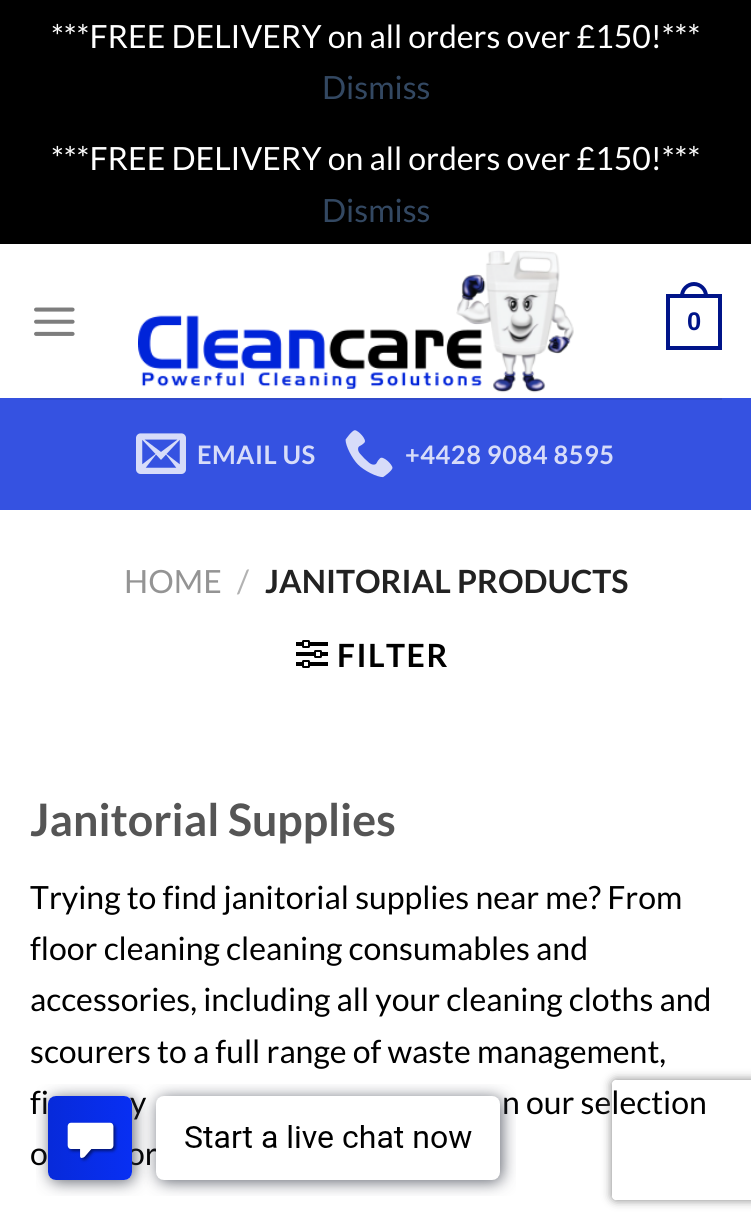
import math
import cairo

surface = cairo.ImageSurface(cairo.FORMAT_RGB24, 751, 1228)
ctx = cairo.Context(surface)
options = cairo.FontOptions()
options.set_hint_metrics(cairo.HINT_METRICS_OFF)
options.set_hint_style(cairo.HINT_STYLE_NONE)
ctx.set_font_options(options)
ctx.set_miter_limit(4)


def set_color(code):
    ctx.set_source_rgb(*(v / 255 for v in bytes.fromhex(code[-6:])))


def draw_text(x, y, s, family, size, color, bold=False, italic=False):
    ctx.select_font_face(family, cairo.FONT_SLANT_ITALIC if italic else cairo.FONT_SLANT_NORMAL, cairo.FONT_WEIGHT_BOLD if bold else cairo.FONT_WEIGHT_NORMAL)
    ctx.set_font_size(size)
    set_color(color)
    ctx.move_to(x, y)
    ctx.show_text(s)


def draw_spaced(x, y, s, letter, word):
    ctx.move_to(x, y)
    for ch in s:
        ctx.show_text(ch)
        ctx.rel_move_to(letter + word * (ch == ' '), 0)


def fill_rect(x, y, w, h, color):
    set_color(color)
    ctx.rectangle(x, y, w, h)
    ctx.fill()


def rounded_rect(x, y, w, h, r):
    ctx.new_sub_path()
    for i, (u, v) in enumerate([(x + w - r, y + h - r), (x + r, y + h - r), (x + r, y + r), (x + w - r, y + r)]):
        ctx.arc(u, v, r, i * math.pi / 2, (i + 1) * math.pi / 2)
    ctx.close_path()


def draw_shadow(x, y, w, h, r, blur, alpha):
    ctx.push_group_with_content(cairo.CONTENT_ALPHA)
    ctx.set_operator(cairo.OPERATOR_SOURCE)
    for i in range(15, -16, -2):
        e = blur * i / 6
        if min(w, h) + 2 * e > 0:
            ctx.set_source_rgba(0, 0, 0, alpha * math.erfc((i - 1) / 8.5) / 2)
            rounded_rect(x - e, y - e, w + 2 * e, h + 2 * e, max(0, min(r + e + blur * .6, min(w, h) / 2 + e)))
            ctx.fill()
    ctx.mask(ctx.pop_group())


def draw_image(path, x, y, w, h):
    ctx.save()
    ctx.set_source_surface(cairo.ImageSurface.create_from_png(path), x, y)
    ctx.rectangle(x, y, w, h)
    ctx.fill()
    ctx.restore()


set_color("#000000")
ctx.paint()
draw_text(51, 48, "***FREE DELIVERY on all orders over £150!***", "Lato", 32, "#ffffff")
draw_text(322, 99, "Dismiss", "Lato", 32, "#334862")
draw_text(51, 170, "***FREE DELIVERY on all orders over £150!***", "Lato", 32, "#ffffff")
draw_text(322, 222, "Dismiss", "Lato", 32, "#334862")
fill_rect(0, 244, 751, 984, "#ffffff")
draw_image("assets/img1.png", 34, 307, 41, 29)
draw_image("assets/img2.png", 138, 250, 436, 143)
ctx.rectangle(668, 296, 52, 52)
set_color("#001489")
ctx.set_line_width(4)
ctx.stroke()
ctx.set_fill_rule(cairo.FILL_RULE_EVEN_ODD)
ctx.new_path()
ctx.move_to(694, 282)
ctx.curve_to(701.5, 282, 708, 288.5, 708, 296)
ctx.line_to(708, 298)
ctx.line_to(680, 298)
ctx.line_to(680, 296)
ctx.curve_to(680, 288.5, 686.5, 282, 694, 282)
ctx.close_path()
ctx.move_to(694, 286)
ctx.curve_to(699.5, 286, 704, 290.5, 704, 296)
ctx.line_to(704, 298)
ctx.line_to(684, 298)
ctx.line_to(684, 296)
ctx.curve_to(684, 290.5, 688.5, 286, 694, 286)
ctx.close_path()
ctx.fill()
draw_text(687, 330, "0", "Liberation Sans", 25.5, "#001489", bold=True)
fill_rect(0, 398, 751, 112, "#3552e1")
fill_rect(30, 398, 692, 2, "#304acb")
draw_image("assets/img3.png", 136, 433, 50, 41)
ctx.select_font_face("Lato", cairo.FONT_SLANT_NORMAL, cairo.FONT_WEIGHT_BOLD)
set_color("#d7dcf9")
draw_spaced(197, 464, "EMAIL US", 0.5, 0)
draw_image("assets/img4.png", 345, 430, 48, 48)
draw_spaced(405, 464, "+4428 9084 8595", 0.5, 0)
draw_text(124, 593, "HOME", "Lato", 32, "#949494")
draw_text(237, 593, "/", "Lato", 32, "#b2b2b2")
draw_text(265, 593, "JANITORIAL PRODUCTS", "Lato", 32, "#222222", bold=True)
draw_image("assets/img5.png", 296, 640, 32, 28)
set_color("#000000")
draw_spaced(337, 667, "FILTER", 1.5, 0)
draw_text(30, 836, "Janitorial Supplies", "Lato", 44.75, "#555555", bold=True)
draw_text(30, 909, "Trying to find janitorial supplies near me? From", "Lato", 32, "#000000")
draw_text(30, 960, "floor cleaning cleaning consumables and", "Lato", 32, "#000000")
draw_text(30, 1011, "accessories, including all your cleaning cloths and", "Lato", 32, "#000000")
draw_text(30, 1063, "scourers to a full range of waste management,", "Lato", 32, "#000000")
draw_text(30, 1114, "fi", "Lato", 32, "#000000")
draw_text(130, 1114, "y", "Lato", 32, "#000000")
draw_text(502, 1114, "n our selection", "Lato", 32, "#000000")
draw_text(30, 1165, "o", "Lato", 32, "#000000")
draw_text(127, 1165, "or", "Lato", 32, "#000000")
draw_image("assets/img6.png", 36, 1084, 480, 112)
ctx.save()
ctx.new_path()
ctx.move_to(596, 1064)
ctx.line_to(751, 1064)
ctx.line_to(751, 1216)
ctx.line_to(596, 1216)
ctx.close_path()
ctx.move_to(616, 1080)
ctx.line_to(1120, 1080)
ctx.curve_to(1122, 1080, 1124, 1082, 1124, 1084)
ctx.line_to(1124, 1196)
ctx.curve_to(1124, 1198, 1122, 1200, 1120, 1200)
ctx.line_to(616, 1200)
ctx.curve_to(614, 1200, 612, 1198, 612, 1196)
ctx.line_to(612, 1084)
ctx.curve_to(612, 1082, 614, 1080, 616, 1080)
ctx.close_path()
ctx.clip()
set_color("#808080")
draw_shadow(612, 1080, 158, 120, 4, 5, 1)
ctx.restore()
surface.write_to_png("output.png")
